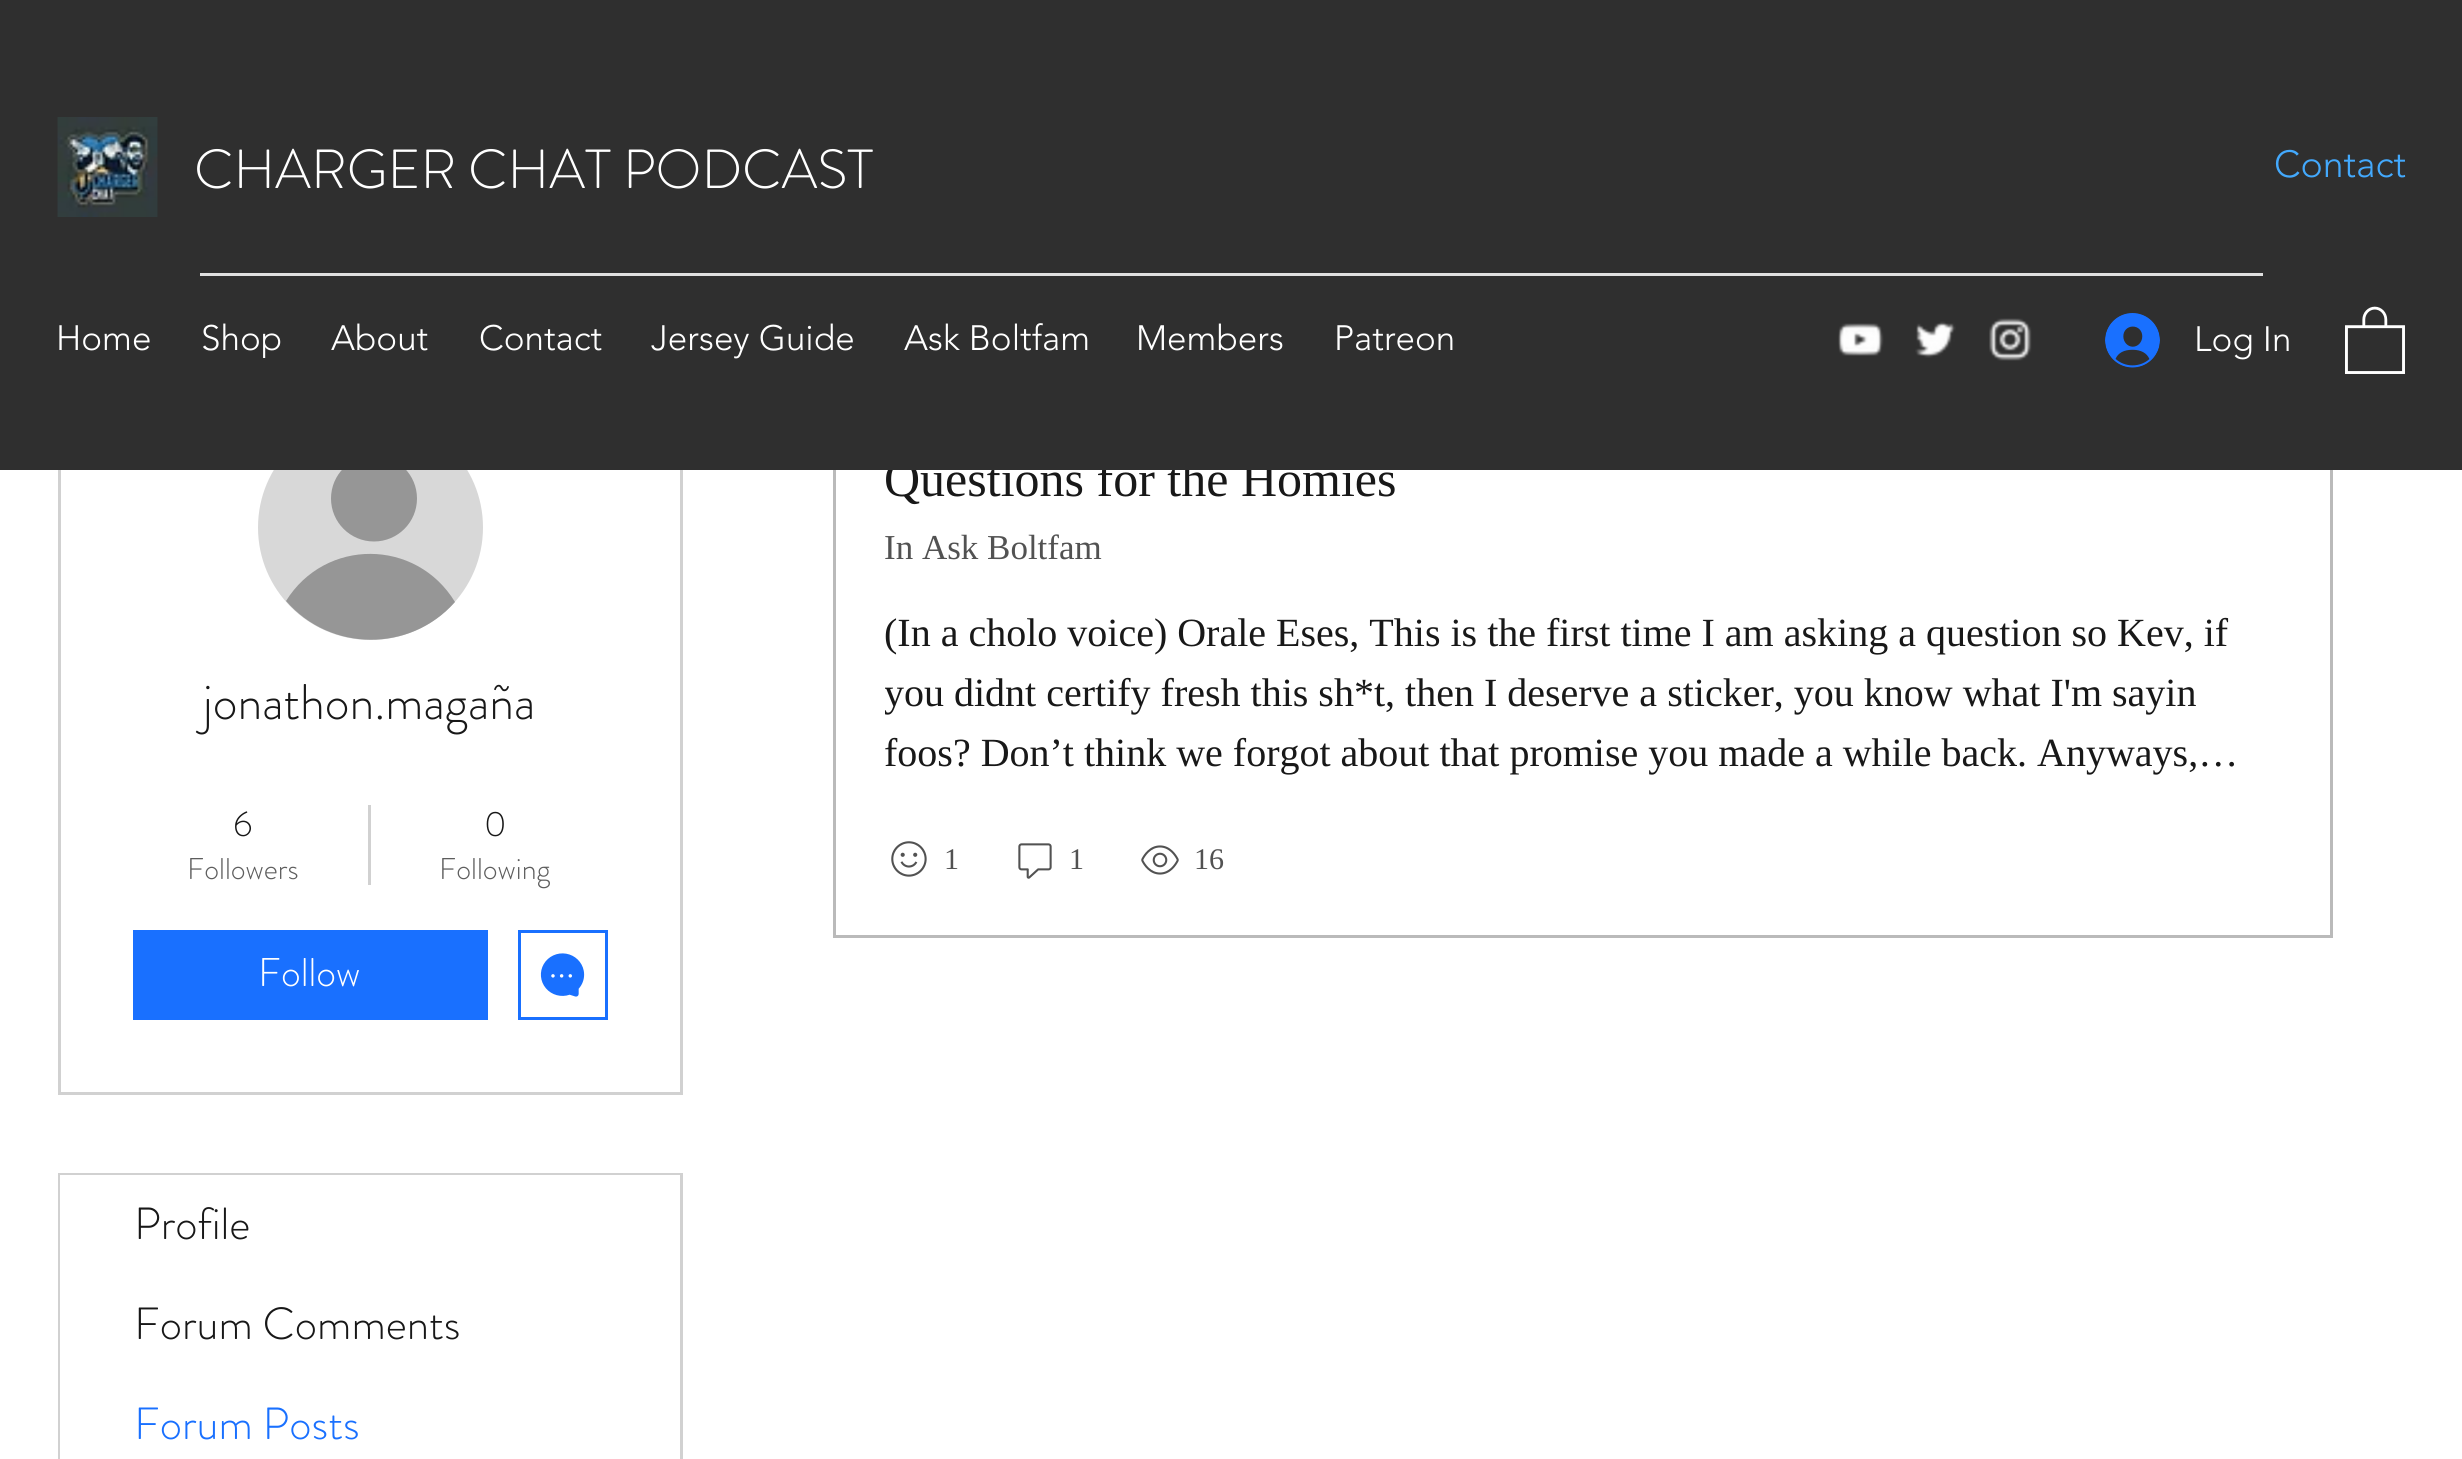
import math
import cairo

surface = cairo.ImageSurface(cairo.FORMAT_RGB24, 2462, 1459)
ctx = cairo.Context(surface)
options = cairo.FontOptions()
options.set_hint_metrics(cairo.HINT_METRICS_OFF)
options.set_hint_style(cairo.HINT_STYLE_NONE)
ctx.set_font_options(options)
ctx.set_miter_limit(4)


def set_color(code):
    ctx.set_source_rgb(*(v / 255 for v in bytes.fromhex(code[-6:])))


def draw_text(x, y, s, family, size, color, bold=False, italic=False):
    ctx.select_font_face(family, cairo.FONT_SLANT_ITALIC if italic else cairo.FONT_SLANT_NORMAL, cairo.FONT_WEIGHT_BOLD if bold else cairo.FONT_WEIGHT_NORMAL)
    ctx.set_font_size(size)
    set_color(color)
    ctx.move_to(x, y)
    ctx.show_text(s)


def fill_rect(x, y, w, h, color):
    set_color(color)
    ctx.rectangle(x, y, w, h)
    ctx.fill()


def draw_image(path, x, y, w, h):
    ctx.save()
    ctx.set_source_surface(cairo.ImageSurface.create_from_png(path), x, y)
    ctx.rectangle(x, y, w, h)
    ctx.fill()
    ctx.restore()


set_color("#ffffff")
ctx.paint()
ctx.rectangle(59.5, 341.5, 622, 752)
set_color("#d1d1d1")
ctx.set_line_width(3)
ctx.stroke()
set_color("#d8d8d8")
ctx.arc(370.5, 527.5, 112.5, 0, 2 * math.pi)
ctx.fill()
set_color("#969696")
ctx.arc(374, 498.5, 43, 0, 2 * math.pi)
ctx.fill()
ctx.rectangle(834.5, 254.5, 1497, 682)
set_color("#bababa")
ctx.stroke()
draw_text(884, 496, "Questions for the Homies", "Liberation Serif", 50, "#181818")
fill_rect(0, 0, 2462, 470, "#2f2f2f")
draw_image("assets/img1.png", 57, 117, 101, 100)
draw_text(194, 188, "CHARGER CHAT PODCAST", "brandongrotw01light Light", 55, "#ffffff")
draw_text(2274, 177, "Contact", "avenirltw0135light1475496 Light", 37.5, "#43a9fd")
fill_rect(200, 273, 2063, 3, "#e0e0e0")
draw_text(56, 350, "Home", "avenirltw0135light1475496 Light", 35, "#ffffff")
draw_text(201, 350, "Shop", "avenirltw0135light1475496 Light", 35, "#ffffff")
draw_text(331, 350, "About", "avenirltw0135light1475496 Light", 35, "#ffffff")
draw_text(479, 350, "Contact", "avenirltw0135light1475496 Light", 35, "#ffffff")
draw_text(651, 350, "Jersey Guide", "avenirltw0135light1475496 Light", 35, "#ffffff")
draw_text(904, 350, "Ask Boltfam", "avenirltw0135light1475496 Light", 35, "#ffffff")
draw_text(1136, 350, "Members", "avenirltw0135light1475496 Light", 35, "#ffffff")
draw_text(1334, 350, "Patreon", "avenirltw0135light1475496 Light", 35, "#ffffff")
draw_image("assets/img2.png", 1838, 323, 46, 33)
draw_image("assets/img3.png", 1915, 321, 41, 37)
draw_image("assets/img4.png", 1989, 318, 43, 43)
draw_image("assets/img5.png", 2105, 313, 55, 55)
draw_text(2194, 351, "Log In", "avenirltw0135light1475496 Light", 35, "#ffffff")
draw_image("assets/img6.png", 2345, 306, 60, 68)
set_color("#969696")
ctx.new_path()
ctx.move_to(455, 602)
ctx.curve_to(410, 653, 330, 652, 286, 601)
ctx.curve_to(325, 538, 416, 538, 455, 602)
ctx.close_path()
ctx.fill()
draw_text(203, 719, "jonathon.magaña", "brandongrotw01light Light", 50, "#181818")
draw_text(233, 836, "6", "brandongrotw01light Light", 35, "#181818")
draw_text(187, 879, "Followers", "brandongrotw01light Light", 30, "#5d5d5d")
fill_rect(368, 805, 3, 80, "#d1d1d1")
draw_text(484, 836, "0", "brandongrotw01light Light", 35, "#181818")
ctx.save()
ctx.rectangle(440, 850, 110, 40)
ctx.clip()
draw_text(439, 879, "Following", "brandongrotw01light Light", 30, "#5d5d5d")
ctx.restore()
fill_rect(133, 930, 355, 90, "#1970ff")
draw_text(258, 986, "Follow", "brandongrotw01light Light", 40, "#ffffff")
ctx.rectangle(519.5, 931.5, 87, 87)
set_color("#1970ff")
ctx.stroke()
draw_image("assets/img7.png", 540, 953, 45, 44)
ctx.rectangle(59.5, 1174.5, 622, 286)
set_color("#d1d1d1")
ctx.stroke()
fill_rect(60, 1175, 620, 100, "#ffffff")
draw_text(134, 1239, "Profile", "brandongrotw01light Light", 45, "#181818")
fill_rect(60, 1275, 1, 184, "#ffffff")
draw_text(134, 1339, "Forum Comments", "brandongrotw01light Light", 45, "#181818")
draw_text(134, 1439, "Forum Posts", "brandongrotw01light Light", 45, "#1970ff")
draw_text(884, 559, "In Ask Boltfam", "Liberation Serif", 35, "#525252")
draw_text(884, 646, "(In a cholo voice) Orale Eses, This is the first time I am asking a question so Kev, if", "Liberation Serif", 40, "#181818")
ctx.save()
ctx.rectangle(885, 605, 1395, 180)
ctx.clip()
draw_text(884, 706, "you didnt certify fresh this sh*t, then I deserve a sticker, you know what I'm sayin", "Liberation Serif", 40, "#181818")
ctx.restore()
draw_text(884, 766, "foos? Don’t think we forgot about that promise you made a while back. Anyways,…", "Liberation Serif", 40, "#181818")
draw_image("assets/img8.png", 891, 841, 36, 36)
draw_text(944, 869, "1", "Liberation Serif", 30, "#525252")
draw_image("assets/img9.png", 1018, 843, 34, 36)
draw_text(1069, 869, "1", "Liberation Serif", 30, "#525252")
draw_image("assets/img10.png", 1141, 845, 38, 30)
draw_text(1194, 869, "16", "Liberation Serif", 30, "#525252")
surface.write_to_png("output.png")
